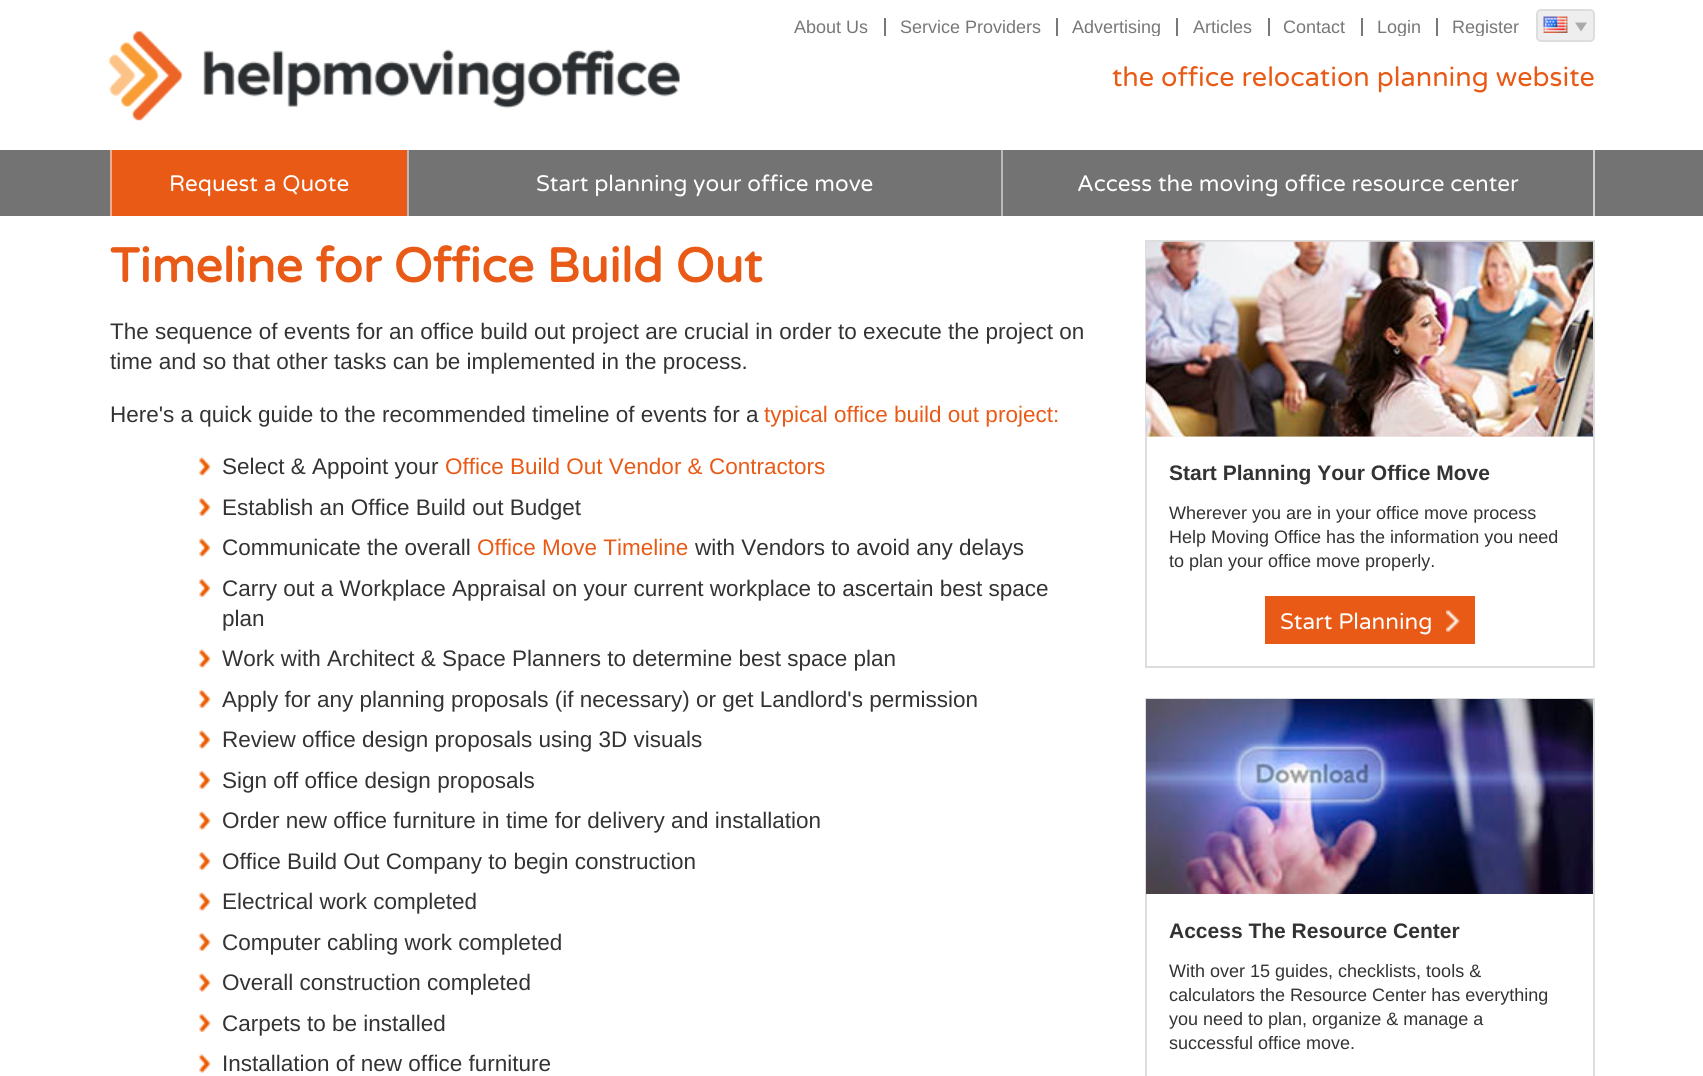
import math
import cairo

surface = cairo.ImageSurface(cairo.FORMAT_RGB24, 1703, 1076)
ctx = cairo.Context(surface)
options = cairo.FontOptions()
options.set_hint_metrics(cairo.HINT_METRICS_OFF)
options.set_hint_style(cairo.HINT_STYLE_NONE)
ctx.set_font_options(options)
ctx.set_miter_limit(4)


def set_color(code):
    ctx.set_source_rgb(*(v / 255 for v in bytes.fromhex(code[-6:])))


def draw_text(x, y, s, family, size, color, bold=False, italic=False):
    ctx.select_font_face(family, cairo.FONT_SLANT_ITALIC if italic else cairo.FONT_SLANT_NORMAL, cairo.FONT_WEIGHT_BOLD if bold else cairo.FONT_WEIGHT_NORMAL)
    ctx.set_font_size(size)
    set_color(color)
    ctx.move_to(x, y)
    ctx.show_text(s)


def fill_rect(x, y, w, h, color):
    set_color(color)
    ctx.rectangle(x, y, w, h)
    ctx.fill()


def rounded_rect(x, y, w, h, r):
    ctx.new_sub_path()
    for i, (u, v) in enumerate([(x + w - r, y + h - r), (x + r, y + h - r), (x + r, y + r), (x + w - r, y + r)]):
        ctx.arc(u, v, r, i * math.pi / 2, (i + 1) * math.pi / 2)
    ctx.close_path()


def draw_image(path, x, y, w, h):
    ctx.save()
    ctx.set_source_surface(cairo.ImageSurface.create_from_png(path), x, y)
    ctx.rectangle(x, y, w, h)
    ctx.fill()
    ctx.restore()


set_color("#ffffff")
ctx.paint()
draw_image("assets/img1.png", 109, 31, 571, 90)
draw_text(794, 33, "About Us", "Liberation Sans", 18, "#777777")
fill_rect(884, 18, 2, 18, "#777777")
draw_text(900, 33, "Service Providers", "Liberation Sans", 18, "#777777")
fill_rect(1056, 18, 2, 18, "#777777")
ctx.save()
ctx.rectangle(779, 18, 816, 18)
ctx.clip()
draw_text(1072, 33, "Advertising", "Liberation Sans", 18, "#777777")
ctx.restore()
fill_rect(1176, 18, 2, 18, "#777777")
draw_text(1193, 33, "Articles", "Liberation Sans", 18, "#777777")
fill_rect(1268, 18, 2, 18, "#777777")
draw_text(1283, 33, "Contact", "Liberation Sans", 18, "#777777")
fill_rect(1361, 18, 2, 18, "#777777")
ctx.save()
ctx.rectangle(779, 18, 816, 18)
ctx.clip()
draw_text(1377, 33, "Login", "Liberation Sans", 18, "#777777")
ctx.restore()
fill_rect(1436, 18, 2, 18, "#777777")
ctx.save()
ctx.rectangle(779, 18, 816, 18)
ctx.clip()
draw_text(1452, 33, "Register", "Liberation Sans", 18, "#777777")
ctx.restore()
set_color("#eeeeee")
rounded_rect(1537, 10, 57, 31, 4)
ctx.fill_preserve()
set_color("#dddddd")
ctx.stroke()
draw_image("assets/img2.png", 1543, 16, 25, 17)
set_color("#aaaaaa")
ctx.new_path()
ctx.move_to(1575, 22.5)
ctx.line_to(1587, 22.5)
ctx.line_to(1581, 31.5)
ctx.close_path()
ctx.fill()
draw_text(1112, 86, "the office relocation planning website", "Varela Round", 27, "#e85a15")
fill_rect(0, 150, 1703, 66, "#737373")
fill_rect(112, 150, 295, 66, "#e85a15")
fill_rect(110, 150, 2, 66, "#f4ad8a")
draw_text(169, 191, "Request a Quote", "Varela Round", 22.5, "#ffffff")
fill_rect(407, 150, 2, 66, "#b9b9b9")
draw_text(536, 191, "Start planning your office move", "Varela Round", 22.5, "#ffffff")
fill_rect(1593, 150, 2, 66, "#cccccc")
fill_rect(1001, 150, 2, 66, "#b9b9b9")
draw_text(1077, 191, "Access the moving office resource center", "Varela Round", 22.5, "#ffffff")
draw_text(110, 282, "Timeline for Office Build Out", "Varela Round", 48, "#e85a15", bold=True)
draw_text(110, 339, "The sequence of events for an office build out project are crucial in order to execute the project on", "Liberation Sans", 22.5, "#333333")
draw_text(110, 369, "time and so that other tasks can be implemented in the process.", "Liberation Sans", 22.5, "#333333")
draw_text(110, 422, "Here's a quick guide to the recommended timeline of events for a", "Liberation Sans", 22.5, "#333333")
draw_text(764, 422, "typical office build out project:", "Liberation Sans", 22.5, "#e85a15")
draw_image("assets/img3.png", 199, 457, 11, 19)
draw_text(222, 474, "Select & Appoint your", "Liberation Sans", 22.5, "#333333")
draw_text(445, 474, "Office Build Out Vendor & Contractors", "Liberation Sans", 22.5, "#e85a15")
draw_image("assets/img4.png", 199, 498, 11, 18)
draw_text(222, 515, "Establish an Office Build out Budget", "Liberation Sans", 22.5, "#333333")
draw_image("assets/img3.png", 199, 538, 11, 19)
draw_text(222, 555, "Communicate the overall", "Liberation Sans", 22.5, "#333333")
draw_text(477, 555, "Office Move Timeline", "Liberation Sans", 22.5, "#e85a15")
draw_text(695, 555, "with Vendors to avoid any delays", "Liberation Sans", 22.5, "#333333")
draw_image("assets/img4.png", 199, 579, 11, 18)
draw_text(222, 596, "Carry out a Workplace Appraisal on your current workplace to ascertain best space", "Liberation Sans", 22.5, "#333333")
draw_text(222, 626, "plan", "Liberation Sans", 22.5, "#333333")
draw_image("assets/img3.png", 199, 649, 11, 19)
draw_text(222, 666, "Work with Architect & Space Planners to determine best space plan", "Liberation Sans", 22.5, "#333333")
draw_image("assets/img4.png", 199, 690, 11, 18)
draw_text(222, 707, "Apply for any planning proposals (if necessary) or get Landlord's permission", "Liberation Sans", 22.5, "#333333")
draw_image("assets/img3.png", 199, 730, 11, 19)
draw_text(222, 747, "Review office design proposals using 3D visuals", "Liberation Sans", 22.5, "#333333")
draw_image("assets/img4.png", 199, 771, 11, 18)
draw_text(222, 788, "Sign off office design proposals", "Liberation Sans", 22.5, "#333333")
draw_image("assets/img3.png", 199, 811, 11, 19)
draw_text(222, 828, "Order new office furniture in time for delivery and installation", "Liberation Sans", 22.5, "#333333")
draw_image("assets/img4.png", 199, 852, 11, 18)
draw_text(222, 869, "Office Build Out Company to begin construction", "Liberation Sans", 22.5, "#333333")
draw_image("assets/img3.png", 199, 892, 11, 19)
draw_text(222, 909, "Electrical work completed", "Liberation Sans", 22.5, "#333333")
draw_image("assets/img4.png", 199, 933, 11, 18)
draw_text(222, 950, "Computer cabling work completed", "Liberation Sans", 22.5, "#333333")
draw_image("assets/img3.png", 199, 973, 11, 19)
draw_text(222, 990, "Overall construction completed", "Liberation Sans", 22.5, "#333333")
draw_image("assets/img4.png", 199, 1014, 11, 18)
draw_text(222, 1031, "Carpets to be installed", "Liberation Sans", 22.5, "#333333")
draw_image("assets/img3.png", 199, 1054, 11, 19)
draw_text(222, 1071, "Installation of new office furniture", "Liberation Sans", 22.5, "#333333")
ctx.rectangle(1146, 241, 448, 426)
set_color("#dddddd")
ctx.stroke()
fill_rect(1146, 436, 447, 1, "#eeeeee")
draw_image("assets/img5.png", 1146, 241, 447, 196)
draw_text(1169, 480, "Start Planning Your Office Move", "Liberation Sans", 21, "#333333", bold=True)
draw_text(1169, 519, "Wherever you are in your office move process", "Liberation Sans", 18, "#333333")
draw_text(1169, 543, "Help Moving Office has the information you need", "Liberation Sans", 18, "#333333")
draw_text(1169, 567, "to plan your office move properly.", "Liberation Sans", 18, "#333333")
fill_rect(1265, 596, 210, 48, "#e85a15")
draw_text(1280, 629, "Start Planning", "Varela Round", 22.5, "#ffffff")
draw_image("assets/img6.png", 1446, 610, 14, 22)
ctx.rectangle(1146, 699, 448, 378)
set_color("#dddddd")
ctx.stroke()
draw_image("assets/img7.png", 1146, 699, 447, 195)
draw_text(1169, 938, "Access The Resource Center", "Liberation Sans", 21, "#333333", bold=True)
draw_text(1169, 977, "With over 15 guides, checklists, tools &", "Liberation Sans", 18, "#333333")
draw_text(1169, 1001, "calculators the Resource Center has everything", "Liberation Sans", 18, "#333333")
draw_text(1169, 1025, "you need to plan, organize & manage a", "Liberation Sans", 18, "#333333")
draw_text(1169, 1049, "successful office move.", "Liberation Sans", 18, "#333333")
surface.write_to_png("output.png")
